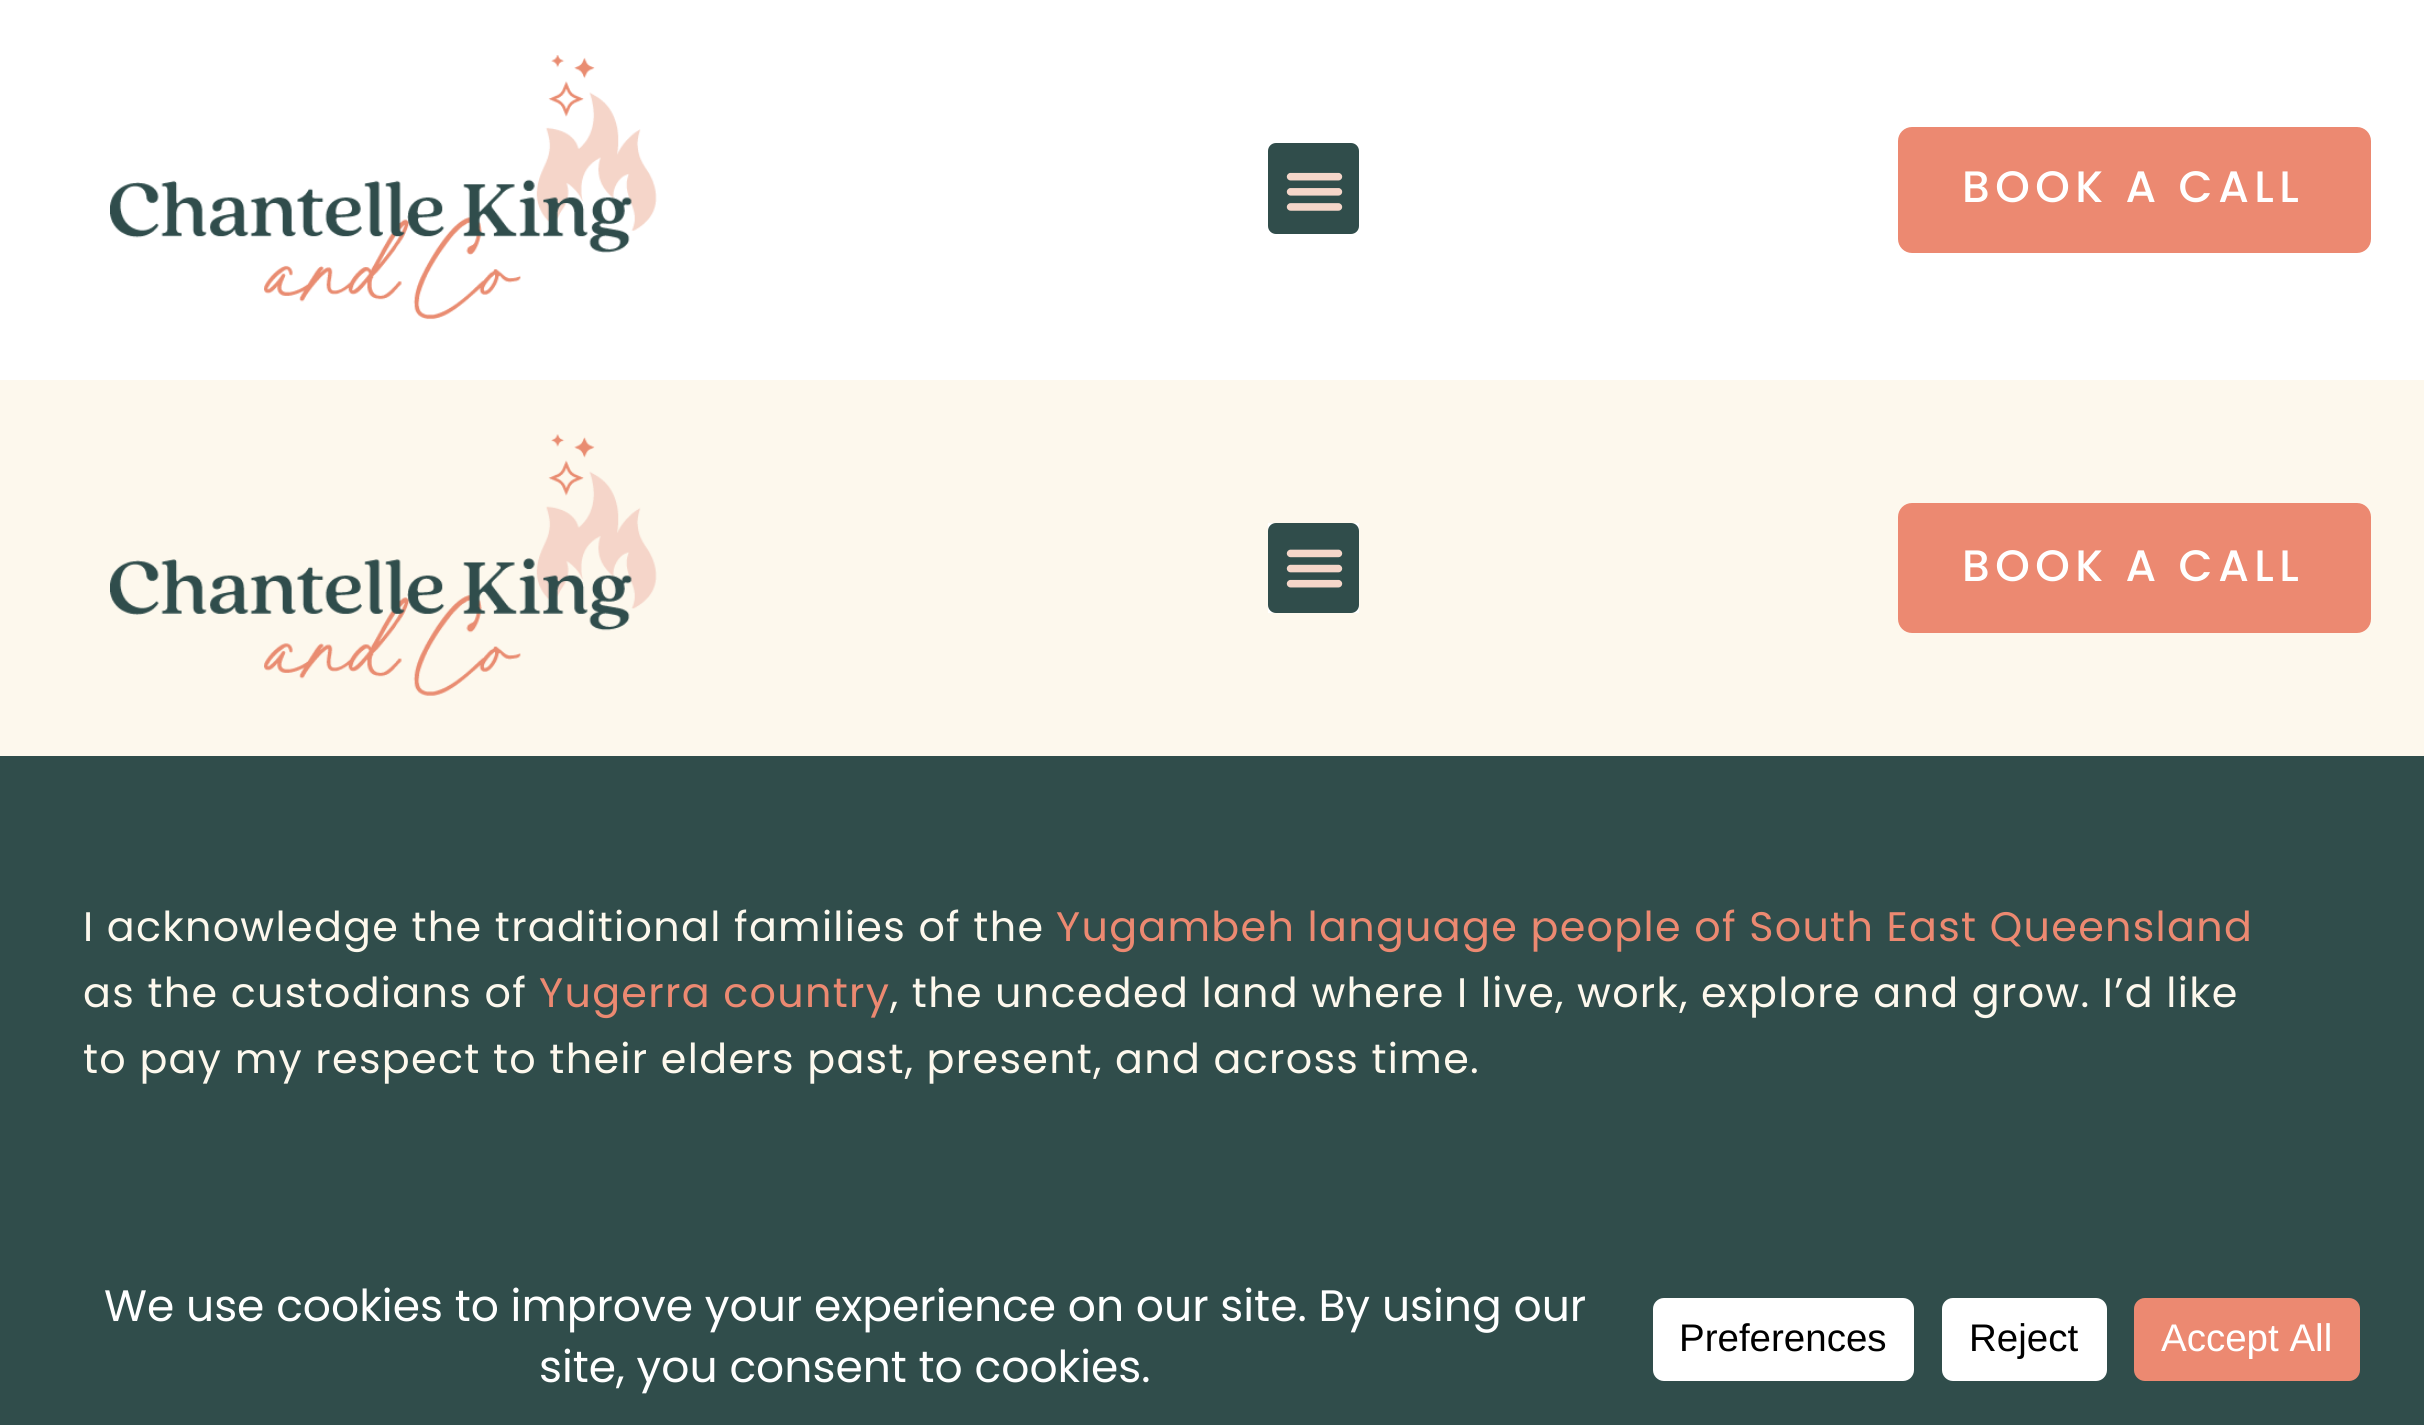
import math
import cairo

surface = cairo.ImageSurface(cairo.FORMAT_RGB24, 2424, 1425)
ctx = cairo.Context(surface)
options = cairo.FontOptions()
options.set_hint_metrics(cairo.HINT_METRICS_OFF)
options.set_hint_style(cairo.HINT_STYLE_NONE)
ctx.set_font_options(options)
ctx.set_miter_limit(4)


def set_color(code):
    ctx.set_source_rgb(*(v / 255 for v in bytes.fromhex(code[-6:])))


def draw_text(x, y, s, family, size, color, bold=False, italic=False):
    ctx.select_font_face(family, cairo.FONT_SLANT_ITALIC if italic else cairo.FONT_SLANT_NORMAL, cairo.FONT_WEIGHT_BOLD if bold else cairo.FONT_WEIGHT_NORMAL)
    ctx.set_font_size(size)
    set_color(color)
    ctx.move_to(x, y)
    ctx.show_text(s)


def draw_spaced(x, y, s, letter, word):
    ctx.move_to(x, y)
    for ch in s:
        ctx.show_text(ch)
        ctx.rel_move_to(letter + word * (ch == ' '), 0)


def fill_rect(x, y, w, h, color):
    set_color(color)
    ctx.rectangle(x, y, w, h)
    ctx.fill()


def rounded_rect(x, y, w, h, r):
    ctx.new_sub_path()
    for i, (u, v) in enumerate([(x + w - r, y + h - r), (x + r, y + h - r), (x + r, y + r), (x + w - r, y + r)]):
        ctx.arc(u, v, r, i * math.pi / 2, (i + 1) * math.pi / 2)
    ctx.close_path()


def draw_image(path, x, y, w, h):
    ctx.save()
    ctx.set_source_surface(cairo.ImageSurface.create_from_png(path), x, y)
    ctx.rectangle(x, y, w, h)
    ctx.fill()
    ctx.restore()


set_color("#fdf8ed")
ctx.paint()
fill_rect(0, 0, 2424, 380, "#ffffff")
draw_image("assets/img1.png", 110, 55, 547, 265)
set_color("#304d4b")
rounded_rect(1268, 143, 91, 91, 8)
ctx.fill()
draw_image("assets/img2.png", 1286, 172, 57, 39)
set_color("#ec8971")
rounded_rect(1898, 127, 473, 126, 14)
ctx.fill()
ctx.select_font_face("Poppins Medium")
ctx.set_font_size(44)
set_color("#ffffff")
draw_spaced(1962, 202, "BOOK A CALL", 5.5, 0)
draw_image("assets/img3.png", 110, 434, 547, 262)
fill_rect(1268, 523, 91, 90, "#ffffff")
set_color("#304d4b")
rounded_rect(1268, 523, 91, 90, 8)
ctx.fill()
draw_image("assets/img4.png", 1286, 549, 57, 39)
set_color("#ec8971")
rounded_rect(1898, 503, 473, 130, 14)
ctx.fill()
set_color("#ffffff")
draw_spaced(1962, 581, "BOOK A CALL", 5.5, 0)
fill_rect(0, 756, 2424, 669, "#304d4b")
ctx.select_font_face("Poppins")
ctx.set_font_size(41.25)
set_color("#fdf8ed")
draw_spaced(83, 941, "I acknowledge the traditional families of the", 1.32, 0)
set_color("#ec8971")
draw_spaced(1056, 941, "Yugambeh language people of South East Queensland", 1.32, 0)
set_color("#fdf8ed")
draw_spaced(83, 1007, "as the custodians of", 1.32, 0)
set_color("#ec8971")
draw_spaced(539, 1007, "Yugerra country", 1.32, 0)
set_color("#fdf8ed")
draw_spaced(890, 1007, ", the unceded land where I live, work, explore and grow. I’d like", 1.32, 0)
draw_spaced(83, 1073, "to pay my respect to their elders past, present, and across time.", 1.32, 0)
draw_text(104, 1321, "We use cookies to improve your experience on our site. By using our", "Poppins", 44, "#ffffff")
draw_text(539, 1382, "site, you consent to cookies.", "Poppins", 44, "#ffffff")
rounded_rect(1653, 1298, 261, 83, 11)
ctx.fill()
draw_text(1679, 1351, "Preferences", "Liberation Sans", 38.5, "#000000")
set_color("#ffffff")
rounded_rect(1942, 1298, 165, 83, 11)
ctx.fill()
draw_text(1969, 1351, "Reject", "Liberation Sans", 38.5, "#000000")
set_color("#ec8971")
rounded_rect(2134, 1298, 226, 83, 11)
ctx.fill()
draw_text(2161, 1351, "Accept All", "Liberation Sans", 38.5, "#ffffff")
surface.write_to_png("output.png")
